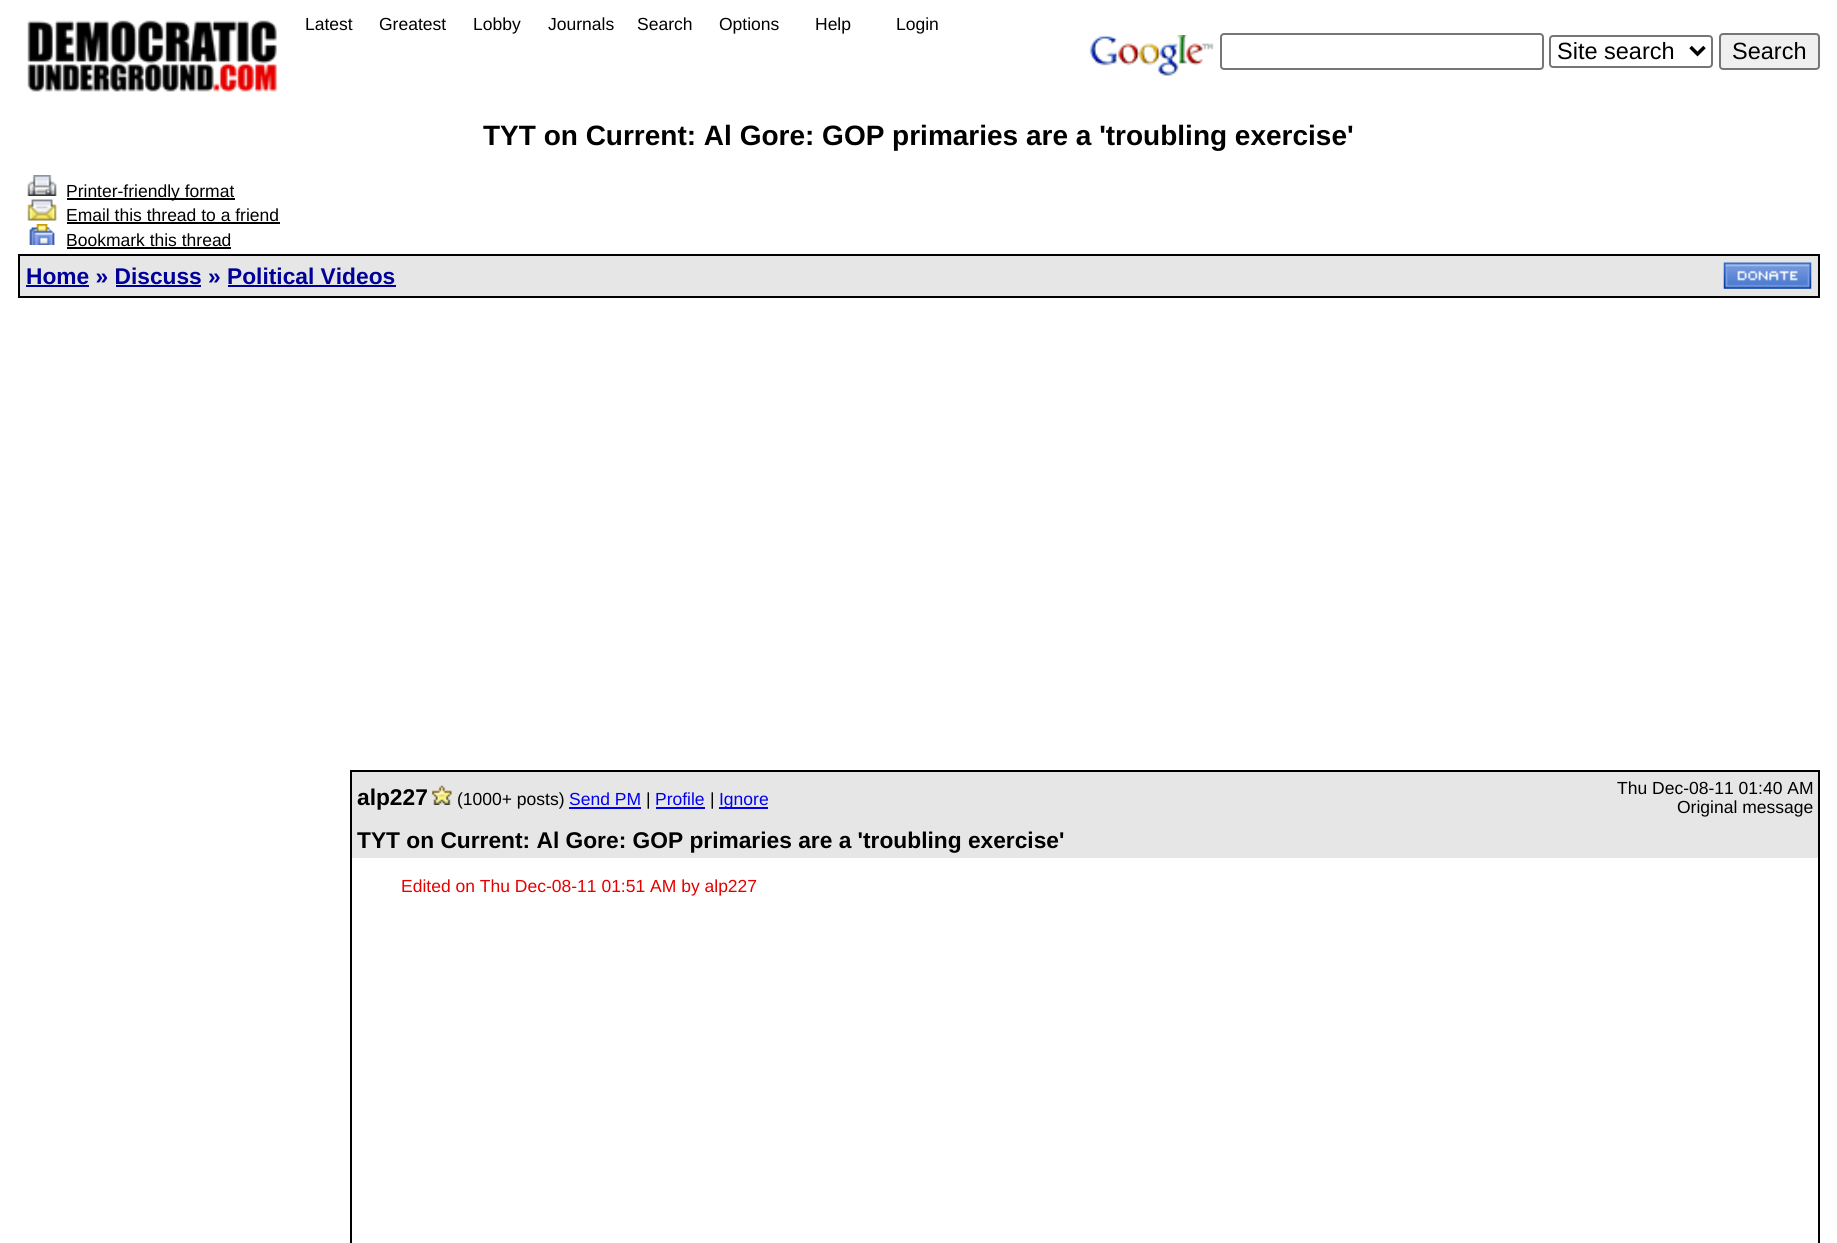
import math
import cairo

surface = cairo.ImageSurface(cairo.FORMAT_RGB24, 1837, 1243)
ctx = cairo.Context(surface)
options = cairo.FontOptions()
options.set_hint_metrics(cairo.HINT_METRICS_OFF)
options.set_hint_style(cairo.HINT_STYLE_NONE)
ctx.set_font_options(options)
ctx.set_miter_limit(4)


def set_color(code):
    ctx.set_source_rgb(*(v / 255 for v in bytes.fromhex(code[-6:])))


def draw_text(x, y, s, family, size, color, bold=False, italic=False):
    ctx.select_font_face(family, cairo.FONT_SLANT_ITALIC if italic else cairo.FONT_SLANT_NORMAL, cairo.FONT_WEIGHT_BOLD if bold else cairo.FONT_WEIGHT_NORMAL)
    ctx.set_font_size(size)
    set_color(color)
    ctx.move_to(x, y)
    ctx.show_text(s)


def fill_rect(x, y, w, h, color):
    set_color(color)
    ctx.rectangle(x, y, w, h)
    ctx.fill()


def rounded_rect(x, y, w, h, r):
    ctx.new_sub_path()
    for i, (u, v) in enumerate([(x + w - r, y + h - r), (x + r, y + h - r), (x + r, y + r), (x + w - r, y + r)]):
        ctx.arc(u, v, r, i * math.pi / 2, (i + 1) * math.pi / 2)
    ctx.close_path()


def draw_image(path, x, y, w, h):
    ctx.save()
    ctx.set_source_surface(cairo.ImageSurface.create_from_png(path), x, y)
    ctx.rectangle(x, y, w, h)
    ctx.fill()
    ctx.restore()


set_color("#ffffff")
ctx.paint()
draw_image("assets/img1.png", 27, 20, 250, 72)
draw_text(305, 30, "Latest", "Liberation Sans", 17.5, "#000000")
draw_text(379, 30, "Greatest", "Liberation Sans", 17.5, "#000000")
draw_text(473, 30, "Lobby", "Liberation Sans", 17.5, "#000000")
draw_text(548, 30, "Journals", "Liberation Sans", 17.5, "#000000")
draw_text(637, 30, "Search", "Liberation Sans", 17.5, "#000000")
draw_text(719, 30, "Options", "Liberation Sans", 17.5, "#000000")
draw_text(815, 30, "Help", "Liberation Sans", 17.5, "#000000")
draw_text(896, 30, "Login", "Liberation Sans", 17.5, "#000000")
draw_image("assets/img2.png", 1089, 35, 125, 41)
rounded_rect(1221, 34, 322, 35, 3)
set_color("#767676")
ctx.stroke()
rounded_rect(1550, 36, 162, 31, 3)
ctx.stroke()
ctx.new_path()
ctx.move_to(1690.5, 47)
ctx.line_to(1697.5, 54)
ctx.line_to(1704.5, 47)
set_color("#000000")
ctx.set_line_width(3.5)
ctx.stroke()
draw_text(1557, 59, "Site search", "Liberation Sans", 23.5, "#000000")
set_color("#efefef")
rounded_rect(1720, 34, 99, 35, 3)
ctx.fill_preserve()
set_color("#767676")
ctx.set_line_width(2)
ctx.stroke()
draw_text(1732, 59, "Search", "Liberation Sans", 23.5, "#000000")
draw_text(483, 145, "TYT on Current: Al Gore: GOP primaries are a 'troubling exercise'", "Liberation Sans", 28, "#000000", bold=True)
draw_image("assets/img3.png", 27, 175, 30, 21)
fill_rect(67, 198, 168, 2, "#000000")
draw_text(66, 197, "Printer-friendly format", "Liberation Sans", 17.5, "#000000")
draw_image("assets/img4.png", 27, 199, 30, 22)
draw_text(66, 221, "Email this thread to a friend", "Liberation Sans", 17.5, "#000000")
fill_rect(67, 222, 213, 2, "#000000")
draw_image("assets/img5.png", 29, 224, 26, 21)
draw_text(66, 246, "Bookmark this thread", "Liberation Sans", 17.5, "#000000")
fill_rect(67, 247, 164, 2, "#000000")
set_color("#e6e6e6")
ctx.rectangle(19, 255, 1800, 42)
ctx.fill_preserve()
set_color("#000000")
ctx.stroke()
draw_text(26, 284, "Home » Discuss » Political Videos", "Liberation Sans", 22.75, "#000099", bold=True)
fill_rect(26, 285, 63, 2, "#000099")
fill_rect(116, 285, 85, 2, "#000099")
fill_rect(228, 285, 168, 2, "#000099")
draw_image("assets/img6.png", 1723, 262, 89, 27)
fill_rect(352, 772, 1466, 86, "#e6e6e6")
fill_rect(350, 770, 1470, 2, "#000000")
fill_rect(1818, 770, 2, 473, "#000000")
fill_rect(350, 770, 2, 473, "#000000")
draw_text(357, 805, "alp227", "Liberation Sans", 22.75, "#000000", bold=True)
draw_image("assets/img7.png", 432, 785, 20, 20)
draw_text(457, 805, "(1000+ posts)", "Liberation Sans", 17.5, "#000000")
draw_text(569, 805, "Send PM", "Liberation Sans", 17.5, "#0000ee")
fill_rect(569, 807, 72, 2, "#0000ee")
draw_text(646, 805, "|", "Liberation Sans", 17.5, "#000000")
draw_text(655, 805, "Profile", "Liberation Sans", 17.5, "#0000ee")
fill_rect(656, 807, 49, 2, "#0000ee")
draw_text(710, 805, "|", "Liberation Sans", 17.5, "#000000")
fill_rect(719, 807, 49, 2, "#0000ee")
draw_text(719, 805, "Ignore", "Liberation Sans", 17.5, "#0000ee")
draw_text(1617, 794, "Thu Dec-08-11 01:40 AM", "Liberation Sans", 17.5, "#000000")
draw_text(1677, 813, "Original message", "Liberation Sans", 17.5, "#000000")
draw_text(357, 848, "TYT on Current: Al Gore: GOP primaries are a 'troubling exercise'", "Liberation Sans", 22.75, "#000000", bold=True)
draw_text(401, 892, "Edited on Thu Dec-08-11 01:51 AM by alp227", "Liberation Sans", 17.5, "#e60000")
surface.write_to_png("output.png")
